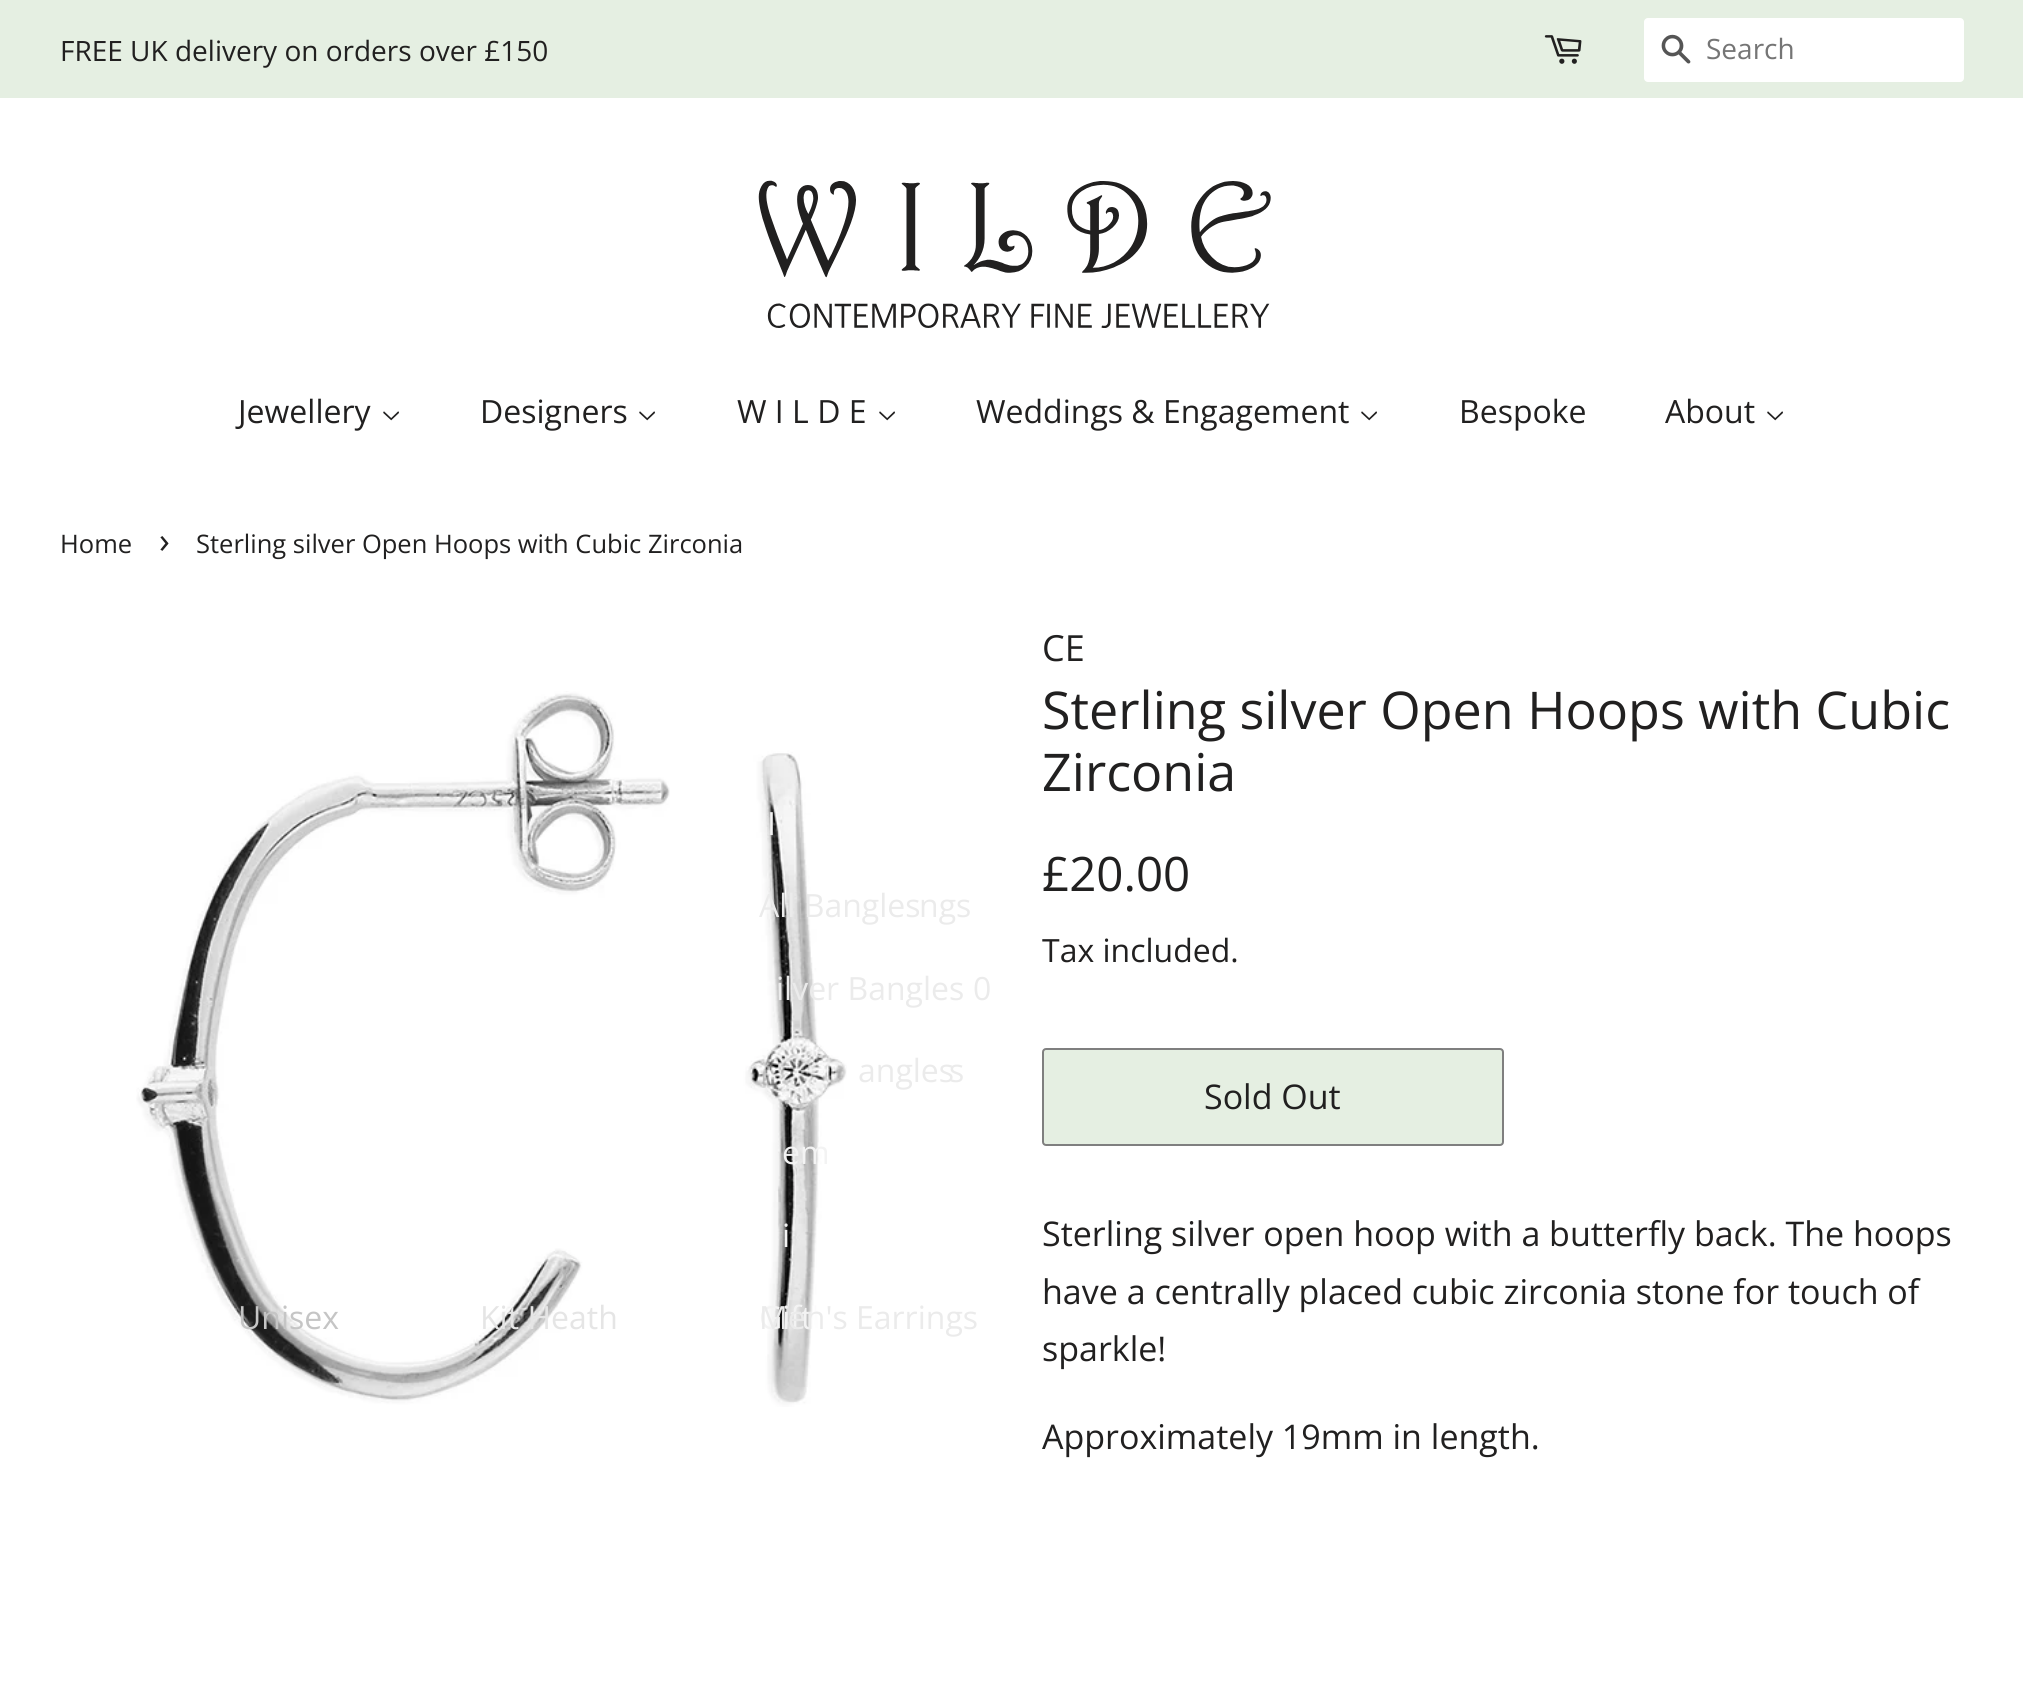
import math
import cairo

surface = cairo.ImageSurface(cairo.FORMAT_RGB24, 2023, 1695)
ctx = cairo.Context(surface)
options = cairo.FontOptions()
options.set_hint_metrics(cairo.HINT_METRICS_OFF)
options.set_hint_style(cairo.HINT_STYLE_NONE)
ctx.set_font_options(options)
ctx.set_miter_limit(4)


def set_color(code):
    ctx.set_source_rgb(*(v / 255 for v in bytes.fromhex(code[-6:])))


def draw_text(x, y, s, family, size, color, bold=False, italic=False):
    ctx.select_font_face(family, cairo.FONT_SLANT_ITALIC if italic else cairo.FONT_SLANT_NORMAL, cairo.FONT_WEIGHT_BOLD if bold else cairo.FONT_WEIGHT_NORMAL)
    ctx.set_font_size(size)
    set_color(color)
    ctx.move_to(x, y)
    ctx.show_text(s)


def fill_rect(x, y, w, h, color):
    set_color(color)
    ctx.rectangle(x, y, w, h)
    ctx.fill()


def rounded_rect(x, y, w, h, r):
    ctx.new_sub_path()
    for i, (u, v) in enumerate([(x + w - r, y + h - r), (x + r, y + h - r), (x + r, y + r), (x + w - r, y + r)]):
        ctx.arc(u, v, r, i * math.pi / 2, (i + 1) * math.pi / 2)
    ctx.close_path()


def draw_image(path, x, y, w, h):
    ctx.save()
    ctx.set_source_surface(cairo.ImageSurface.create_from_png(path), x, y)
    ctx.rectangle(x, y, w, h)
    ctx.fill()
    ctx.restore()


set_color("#ffffff")
ctx.paint()
fill_rect(0, 0, 2023, 98, "#e5efe2")
draw_text(60, 61, "FREE UK delivery on orders over £150", "Open Sans", 28, "#212020")
draw_image("assets/img1.png", 1544, 35, 38, 29)
set_color("#ffffff")
rounded_rect(1644, 18, 320, 64, 4)
ctx.fill()
draw_image("assets/img2.png", 1661, 34, 30, 30)
draw_text(1706, 59, "Search", "Open Sans", 28, "#757575")
draw_image("assets/img3.png", 758, 180, 513, 148)
draw_text(238, 423, "Jewellery", "Open Sans", 32, "#212020")
draw_image("assets/img4.png", 383, 411, 16, 10)
draw_image("assets/img5.png", 136, 691, 711, 716)
draw_text(759, 917, "All Bangles", "Open Sans", 32, "#ebebeb")
draw_text(776, 1000, "ilver Bangles", "Open Sans", 32, "#ebebeb")
draw_text(858, 1082, "angles", "Open Sans", 32, "#ebebeb")
draw_text(919, 917, "ngs", "Open Sans", 32, "#ebebeb")
draw_text(949, 1082, "s", "Open Sans", 32, "#ebebeb")
draw_text(782, 1164, "em", "Open Sans", 32, "#f3f3f3")
draw_text(238, 1329, "Unisex", "Open Sans", 32, "#c5c5c5")
draw_text(973, 1000, "0", "Open Sans", 32, "#ebebeb")
draw_text(782, 1247, "i", "Open Sans", 32, "#f3f3f3")
draw_text(759, 1329, "Gift", "Open Sans", 32, "#f3f3f3")
draw_text(759, 1329, "Men's Earrings", "Open Sans", 32, "#ebebeb")
draw_text(976, 423, "Weddings & Engagement", "Open Sans", 32, "#212020")
draw_image("assets/img4.png", 1361, 411, 16, 10)
draw_text(1459, 423, "Bespoke", "Open Sans", 32, "#212020")
draw_text(1665, 423, "About", "Open Sans", 32, "#212020")
draw_image("assets/img4.png", 1767, 411, 16, 10)
draw_text(480, 423, "Designers", "Open Sans", 32, "#212020")
draw_image("assets/img4.png", 639, 411, 16, 10)
draw_text(480, 1329, "Kit Heath", "Open Sans", 32, "#e5e5e5")
draw_text(737, 423, "W I L D E", "Open Sans", 32, "#212020")
draw_image("assets/img4.png", 879, 411, 16, 10)
draw_text(767, 835, "I", "Open Sans", 32, "#f3f3f3")
draw_text(60, 553, "Home", "Open Sans", 25.5, "#212020")
draw_text(159, 553, "›", "Open Sans", 36, "#212020")
draw_text(196, 553, "Sterling silver Open Hoops with Cubic Zirconia", "Open Sans", 25.5, "#212020")
draw_text(1042, 661, "CE", "Open Sans", 36, "#212020")
draw_text(1042, 729, "Sterling silver Open Hoops with Cubic", "Open Sans", 52, "#212020")
draw_text(1042, 791, "Zirconia", "Open Sans", 52, "#212020")
draw_text(1042, 891, "£20.00", "Open Sans", 47.5, "#212020")
draw_text(1042, 962, "Tax included.", "Open Sans", 32, "#212020")
set_color("#e5efe2")
rounded_rect(1043, 1049, 460, 96, 3)
ctx.fill_preserve()
set_color("#7f7f7f")
ctx.stroke()
draw_text(1204, 1109, "Sold Out", "Open Sans", 34, "#212020")
draw_text(1042, 1246, "Sterling silver open hoop with a butterfly back. The hoops", "Open Sans", 34, "#212020")
draw_text(1042, 1304, "have a centrally placed cubic zirconia stone for touch of", "Open Sans", 34, "#212020")
draw_text(1042, 1361, "sparkle!", "Open Sans", 34, "#212020")
draw_text(1042, 1449, "Approximately 19mm in length.", "Open Sans", 34, "#212020")
surface.write_to_png("output.png")
